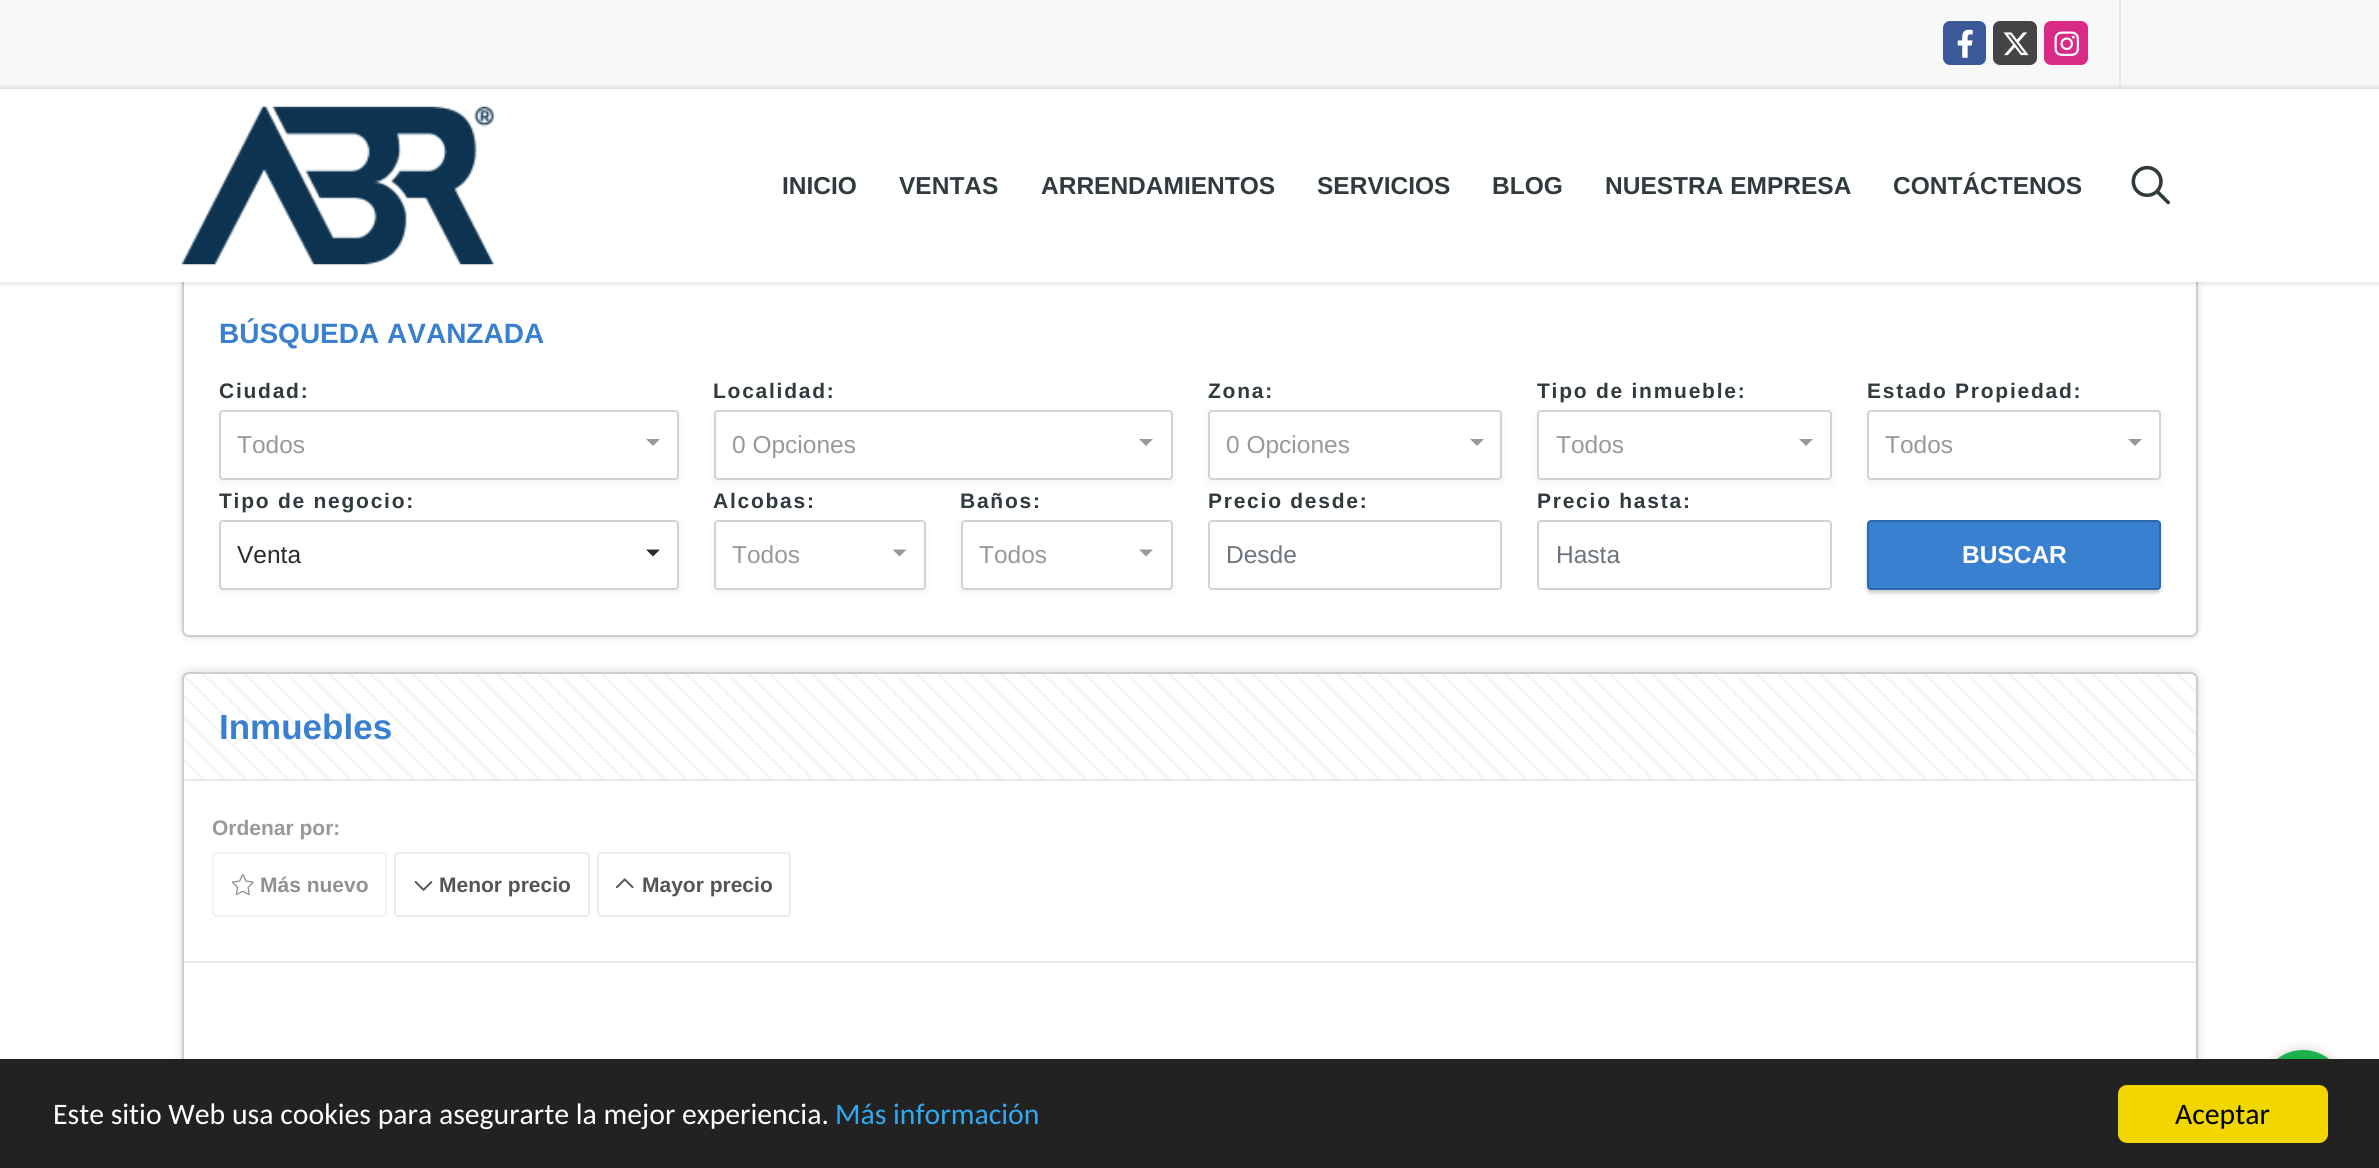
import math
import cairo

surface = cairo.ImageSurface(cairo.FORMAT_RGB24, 2379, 1168)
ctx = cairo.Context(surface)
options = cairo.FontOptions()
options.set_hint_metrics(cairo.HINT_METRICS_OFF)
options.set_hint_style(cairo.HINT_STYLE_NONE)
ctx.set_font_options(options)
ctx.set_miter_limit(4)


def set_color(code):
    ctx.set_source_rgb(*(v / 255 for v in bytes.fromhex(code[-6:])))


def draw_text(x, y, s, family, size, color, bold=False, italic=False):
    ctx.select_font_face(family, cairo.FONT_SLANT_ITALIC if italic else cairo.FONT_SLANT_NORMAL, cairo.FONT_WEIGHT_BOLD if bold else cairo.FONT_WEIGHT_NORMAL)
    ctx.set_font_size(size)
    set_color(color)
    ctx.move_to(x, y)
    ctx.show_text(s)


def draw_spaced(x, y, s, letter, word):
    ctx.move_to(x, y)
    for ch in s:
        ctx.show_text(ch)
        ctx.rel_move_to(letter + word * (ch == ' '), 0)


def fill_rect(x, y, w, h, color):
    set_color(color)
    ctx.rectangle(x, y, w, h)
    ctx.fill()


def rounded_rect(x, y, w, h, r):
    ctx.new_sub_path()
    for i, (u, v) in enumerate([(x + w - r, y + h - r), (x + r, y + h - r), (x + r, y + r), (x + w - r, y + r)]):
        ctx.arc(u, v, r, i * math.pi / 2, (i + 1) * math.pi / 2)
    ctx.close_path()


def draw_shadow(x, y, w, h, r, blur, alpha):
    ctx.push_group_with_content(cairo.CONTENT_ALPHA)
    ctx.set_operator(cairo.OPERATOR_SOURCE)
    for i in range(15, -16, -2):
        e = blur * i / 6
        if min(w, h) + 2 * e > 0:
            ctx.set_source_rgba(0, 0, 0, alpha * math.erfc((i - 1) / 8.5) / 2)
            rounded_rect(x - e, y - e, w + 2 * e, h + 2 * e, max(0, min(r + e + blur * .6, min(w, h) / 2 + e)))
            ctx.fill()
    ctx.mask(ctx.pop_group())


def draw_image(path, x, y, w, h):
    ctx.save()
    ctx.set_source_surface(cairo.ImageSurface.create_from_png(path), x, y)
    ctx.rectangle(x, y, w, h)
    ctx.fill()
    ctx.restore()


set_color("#ffffff")
ctx.paint()
fill_rect(0, 0, 2379, 89, "#f8f8f8")
fill_rect(2119, 0, 2, 89, "#e9e9e9")
set_color("#3b5998")
rounded_rect(1943, 21, 43, 44, 7)
ctx.fill()
draw_image("assets/img1.png", 1957, 29, 16, 29)
set_color("#444444")
rounded_rect(1993, 21, 44, 44, 7)
ctx.fill()
draw_image("assets/img2.png", 2003, 32, 26, 24)
set_color("#d92b86")
rounded_rect(2044, 21, 44, 44, 7)
ctx.fill()
draw_image("assets/img3.png", 2054, 31, 25, 25)
set_color("#000000")
draw_shadow(182, 282, 2016, 355, 7, 3.5, 0.15)
set_color("#ffffff")
ctx.new_path()
ctx.move_to(182, 282)
ctx.line_to(2198, 282)
ctx.line_to(2198, 630)
ctx.curve_to(2198, 634, 2195, 637, 2191, 637)
ctx.line_to(189, 637)
ctx.curve_to(185, 637, 182, 634, 182, 630)
ctx.close_path()
ctx.fill()
set_color("#cdcdcd")
ctx.set_fill_rule(cairo.FILL_RULE_EVEN_ODD)
ctx.new_path()
ctx.move_to(182, 282)
ctx.line_to(2198, 282)
ctx.line_to(2198, 630)
ctx.curve_to(2198, 634, 2195, 637, 2191, 637)
ctx.line_to(189, 637)
ctx.curve_to(185, 637, 182, 634, 182, 630)
ctx.close_path()
ctx.move_to(184, 282)
ctx.line_to(2196, 282)
ctx.line_to(2196, 630)
ctx.curve_to(2196, 633, 2194, 635, 2191, 635)
ctx.line_to(189, 635)
ctx.curve_to(186, 635, 184, 633, 184, 630)
ctx.close_path()
ctx.fill()
set_color("#000000")
draw_shadow(0, 89, 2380, 193, 0, 3.5, 0.2)
fill_rect(0, 89, 2379, 193, "#ffffff")
draw_image("assets/img4.png", 181, 106, 313, 159)
draw_text(782, 194, "INICIO", "Liberation Sans", 24.5, "#303b3d", bold=True)
draw_text(899, 194, "VENTAS", "Liberation Sans", 24.5, "#303b3d", bold=True)
draw_text(1041, 194, "ARRENDAMIENTOS", "Liberation Sans", 24.5, "#303b3d", bold=True)
draw_text(1317, 194, "SERVICIOS", "Liberation Sans", 24.5, "#303b3d", bold=True)
draw_text(1492, 194, "BLOG", "Liberation Sans", 24.5, "#303b3d", bold=True)
draw_text(1605, 194, "NUESTRA EMPRESA", "Liberation Sans", 24.5, "#303b3d", bold=True)
draw_text(1893, 194, "CONTÁCTENOS", "Liberation Sans", 24.5, "#303b3d", bold=True)
draw_image("assets/img5.png", 2131, 165, 39, 40)
draw_text(219, 343, "BÚSQUEDA AVANZADA", "Liberation Sans", 28, "#3a80d0", bold=True)
ctx.set_font_size(21)
set_color("#303b3d")
draw_spaced(219, 398, "Ciudad:", 1.75, 0)
set_color("#000000")
draw_shadow(219, 413, 460, 70, 0, 3.5, 0.05)
set_color("#ffffff")
rounded_rect(220, 411, 458, 68, 3)
ctx.fill_preserve()
set_color("#ced4da")
ctx.stroke()
draw_text(237, 453, "Todos", "Liberation Sans", 24.5, "#999999")
ctx.set_fill_rule(cairo.FILL_RULE_WINDING)
ctx.new_path()
ctx.move_to(646, 439)
ctx.line_to(660, 439)
ctx.line_to(653, 446)
ctx.close_path()
ctx.fill()
ctx.select_font_face("Liberation Sans", cairo.FONT_SLANT_NORMAL, cairo.FONT_WEIGHT_BOLD)
ctx.set_font_size(21)
set_color("#303b3d")
draw_spaced(713, 398, "Localidad:", 1.75, 0)
set_color("#000000")
draw_shadow(714, 413, 459, 70, 0, 3.5, 0.05)
set_color("#ffffff")
rounded_rect(715, 411, 457, 68, 3)
ctx.fill_preserve()
set_color("#ced4da")
ctx.stroke()
draw_text(732, 453, "0 Opciones", "Liberation Sans", 24.5, "#999999")
ctx.new_path()
ctx.move_to(1139, 439)
ctx.line_to(1153, 439)
ctx.line_to(1146, 446)
ctx.close_path()
ctx.fill()
ctx.select_font_face("Liberation Sans", cairo.FONT_SLANT_NORMAL, cairo.FONT_WEIGHT_BOLD)
ctx.set_font_size(21)
set_color("#303b3d")
draw_spaced(1208, 398, "Zona:", 1.75, 0)
set_color("#000000")
draw_shadow(1208, 413, 294, 70, 0, 3.5, 0.05)
set_color("#ffffff")
rounded_rect(1209, 411, 292, 68, 3)
ctx.fill_preserve()
set_color("#ced4da")
ctx.stroke()
draw_text(1226, 453, "0 Opciones", "Liberation Sans", 24.5, "#999999")
ctx.new_path()
ctx.move_to(1470, 439)
ctx.line_to(1484, 439)
ctx.line_to(1477, 446)
ctx.close_path()
ctx.fill()
ctx.select_font_face("Liberation Sans", cairo.FONT_SLANT_NORMAL, cairo.FONT_WEIGHT_BOLD)
ctx.set_font_size(21)
set_color("#303b3d")
draw_spaced(1537, 398, "Tipo de inmueble:", 1.75, 0)
set_color("#000000")
draw_shadow(1537, 413, 295, 70, 0, 3.5, 0.05)
set_color("#ffffff")
rounded_rect(1538, 411, 293, 68, 3)
ctx.fill_preserve()
set_color("#ced4da")
ctx.stroke()
draw_text(1556, 453, "Todos", "Liberation Sans", 24.5, "#999999")
ctx.new_path()
ctx.move_to(1799, 439)
ctx.line_to(1813, 439)
ctx.line_to(1806, 446)
ctx.close_path()
ctx.fill()
ctx.select_font_face("Liberation Sans", cairo.FONT_SLANT_NORMAL, cairo.FONT_WEIGHT_BOLD)
ctx.set_font_size(21)
set_color("#303b3d")
draw_spaced(1867, 398, "Estado Propiedad:", 1.75, 0)
set_color("#000000")
draw_shadow(1867, 413, 294, 70, 0, 3.5, 0.05)
set_color("#ffffff")
rounded_rect(1868, 411, 292, 68, 3)
ctx.fill_preserve()
set_color("#ced4da")
ctx.stroke()
draw_text(1885, 453, "Todos", "Liberation Sans", 24.5, "#999999")
ctx.new_path()
ctx.move_to(2128, 439)
ctx.line_to(2142, 439)
ctx.line_to(2135, 446)
ctx.close_path()
ctx.fill()
ctx.select_font_face("Liberation Sans", cairo.FONT_SLANT_NORMAL, cairo.FONT_WEIGHT_BOLD)
ctx.set_font_size(21)
set_color("#303b3d")
draw_spaced(219, 508, "Tipo de negocio:", 1.75, 0)
set_color("#000000")
draw_shadow(219, 523, 460, 70, 0, 3.5, 0.05)
set_color("#ffffff")
rounded_rect(220, 521, 458, 68, 3)
ctx.fill_preserve()
set_color("#ced4da")
ctx.stroke()
draw_text(237, 563, "Venta", "Liberation Sans", 24.5, "#292b2c")
ctx.new_path()
ctx.move_to(646, 549.5)
ctx.line_to(660, 549.5)
ctx.line_to(653, 556.5)
ctx.close_path()
ctx.fill()
ctx.select_font_face("Liberation Sans", cairo.FONT_SLANT_NORMAL, cairo.FONT_WEIGHT_BOLD)
ctx.set_font_size(21)
set_color("#303b3d")
draw_spaced(713, 508, "Alcobas:", 1.75, 0)
set_color("#000000")
draw_shadow(714, 523, 212, 70, 0, 3.5, 0.05)
set_color("#ffffff")
rounded_rect(715, 521, 210, 68, 3)
ctx.fill_preserve()
set_color("#ced4da")
ctx.stroke()
draw_text(732, 563, "Todos", "Liberation Sans", 24.5, "#999999")
ctx.new_path()
ctx.move_to(892.5, 549.5)
ctx.line_to(906.5, 549.5)
ctx.line_to(899.5, 556.5)
ctx.close_path()
ctx.fill()
ctx.select_font_face("Liberation Sans", cairo.FONT_SLANT_NORMAL, cairo.FONT_WEIGHT_BOLD)
ctx.set_font_size(21)
set_color("#303b3d")
draw_spaced(960, 508, "Baños:", 1.75, 0)
set_color("#000000")
draw_shadow(961, 523, 212, 70, 0, 3.5, 0.05)
set_color("#ffffff")
rounded_rect(962, 521, 210, 68, 3)
ctx.fill_preserve()
set_color("#ced4da")
ctx.stroke()
draw_text(979, 563, "Todos", "Liberation Sans", 24.5, "#999999")
ctx.new_path()
ctx.move_to(1139, 549.5)
ctx.line_to(1153, 549.5)
ctx.line_to(1146, 556.5)
ctx.close_path()
ctx.fill()
ctx.select_font_face("Liberation Sans", cairo.FONT_SLANT_NORMAL, cairo.FONT_WEIGHT_BOLD)
ctx.set_font_size(21)
set_color("#303b3d")
draw_spaced(1208, 508, "Precio desde:", 1.75, 0)
rounded_rect(1209, 521, 292, 68, 3)
set_color("#ced4da")
ctx.stroke()
draw_text(1226, 563, "Desde", "Liberation Sans", 24.5, "#6c757d")
ctx.select_font_face("Liberation Sans", cairo.FONT_SLANT_NORMAL, cairo.FONT_WEIGHT_BOLD)
ctx.set_font_size(21)
set_color("#303b3d")
draw_spaced(1537, 508, "Precio hasta:", 1.75, 0)
rounded_rect(1538, 521, 293, 68, 3)
set_color("#ced4da")
ctx.stroke()
draw_text(1556, 563, "Hasta", "Liberation Sans", 24.5, "#6c757d")
set_color("#000000")
draw_shadow(1867, 523, 294, 70, 4, 2, 0.2)
set_color("#3a80d0")
rounded_rect(1868, 521, 292, 68, 3)
ctx.fill_preserve()
set_color("#2967ae")
ctx.stroke()
draw_text(1962, 563, "BUSCAR", "Liberation Sans", 24.5, "#ffffff", bold=True)
set_color("#000000")
draw_shadow(182, 672, 2016, 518, 7, 5, 0.15)
set_color("#ffffff")
rounded_rect(183, 673, 2014, 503, 6)
ctx.fill_preserve()
set_color("#cdcdcd")
ctx.stroke()
draw_image("assets/img6.png", 184, 674, 2012, 105)
fill_rect(184, 779, 2012, 2, "#e8e8e8")
draw_text(219, 739, "Inmuebles", "Liberation Sans", 35, "#3a80d0", bold=True)
fill_rect(184, 961, 2012, 2, "#ebebeb")
draw_text(212, 835, "Ordenar por:", "Liberation Sans", 21, "#999999", bold=True)
rounded_rect(213, 853, 173, 63, 3)
set_color("#f2f2f2")
ctx.stroke()
draw_image("assets/img7.png", 232, 874, 22, 22)
draw_text(260, 892, "Más nuevo", "Liberation Sans", 21, "#919191", bold=True)
rounded_rect(395, 853, 194, 63, 3)
set_color("#ebebeb")
ctx.stroke()
draw_image("assets/img8.png", 414, 881, 19, 10)
draw_text(439, 892, "Menor precio", "Liberation Sans", 21, "#555555", bold=True)
rounded_rect(598, 853, 192, 63, 3)
set_color("#ebebeb")
ctx.stroke()
draw_image("assets/img9.png", 615, 878, 19, 11)
draw_text(642, 892, "Mayor precio", "Liberation Sans", 21, "#555555", bold=True)
set_color("#000000")
draw_shadow(2261, 1050, 84, 84, 42, 5, 0.2)
set_color("#1bb24e")
ctx.arc(2303, 1092, 42, 0, 2 * math.pi)
ctx.fill()
fill_rect(0, 1059, 2379, 109, "#222222")
draw_text(53, 1124, "Este sitio Web usa cookies para asegurarte la mejor experiencia.", "Carlito", 29.75, "#ffffff")
draw_text(835, 1124, "Más información", "Carlito", 29.75, "#31a8f0")
set_color("#f1d600")
rounded_rect(2118, 1085, 210, 58, 9)
ctx.fill()
draw_text(2175, 1124, "Aceptar", "Carlito", 29.75, "#000000")
surface.write_to_png("output.png")
